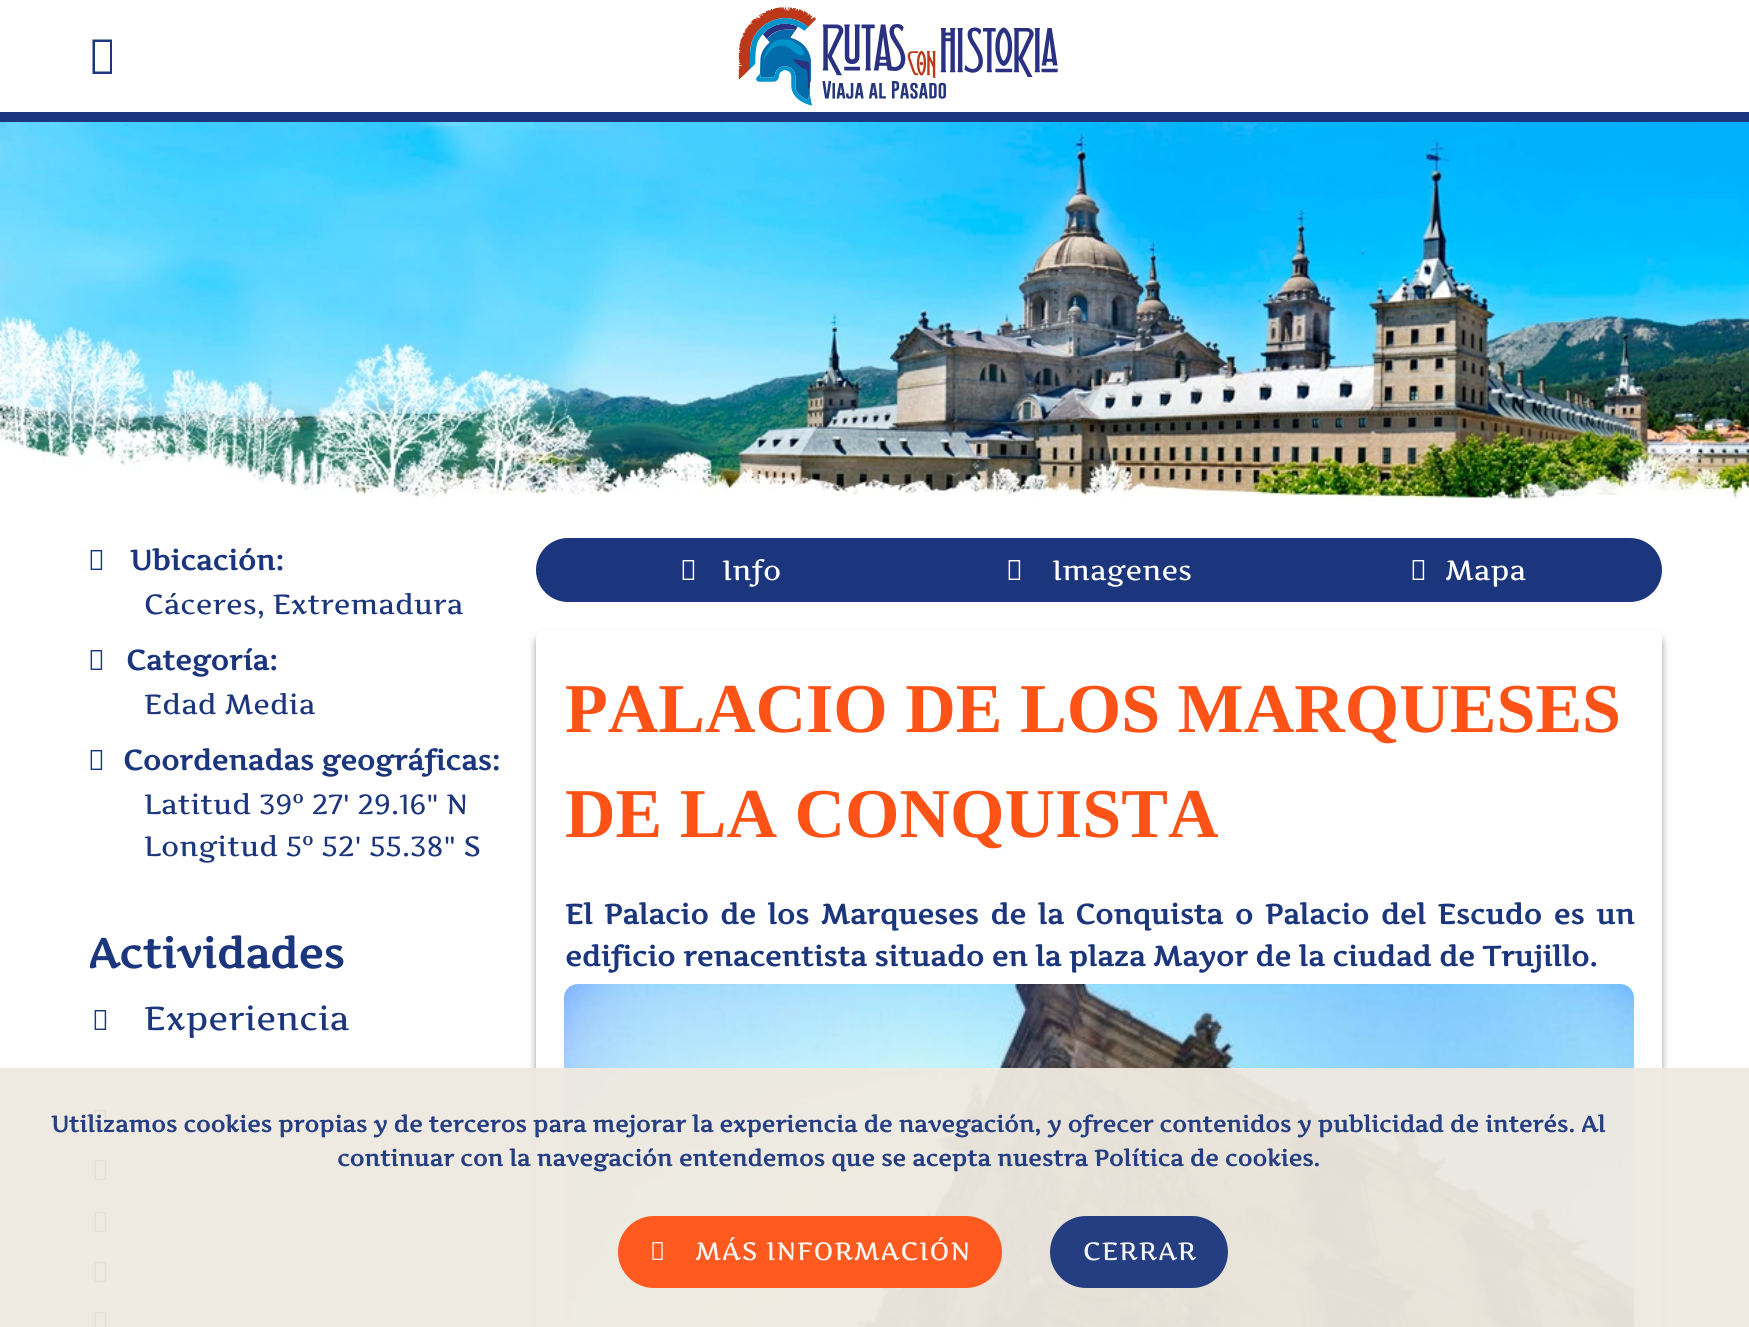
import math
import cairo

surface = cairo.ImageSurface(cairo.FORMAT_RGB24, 1749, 1327)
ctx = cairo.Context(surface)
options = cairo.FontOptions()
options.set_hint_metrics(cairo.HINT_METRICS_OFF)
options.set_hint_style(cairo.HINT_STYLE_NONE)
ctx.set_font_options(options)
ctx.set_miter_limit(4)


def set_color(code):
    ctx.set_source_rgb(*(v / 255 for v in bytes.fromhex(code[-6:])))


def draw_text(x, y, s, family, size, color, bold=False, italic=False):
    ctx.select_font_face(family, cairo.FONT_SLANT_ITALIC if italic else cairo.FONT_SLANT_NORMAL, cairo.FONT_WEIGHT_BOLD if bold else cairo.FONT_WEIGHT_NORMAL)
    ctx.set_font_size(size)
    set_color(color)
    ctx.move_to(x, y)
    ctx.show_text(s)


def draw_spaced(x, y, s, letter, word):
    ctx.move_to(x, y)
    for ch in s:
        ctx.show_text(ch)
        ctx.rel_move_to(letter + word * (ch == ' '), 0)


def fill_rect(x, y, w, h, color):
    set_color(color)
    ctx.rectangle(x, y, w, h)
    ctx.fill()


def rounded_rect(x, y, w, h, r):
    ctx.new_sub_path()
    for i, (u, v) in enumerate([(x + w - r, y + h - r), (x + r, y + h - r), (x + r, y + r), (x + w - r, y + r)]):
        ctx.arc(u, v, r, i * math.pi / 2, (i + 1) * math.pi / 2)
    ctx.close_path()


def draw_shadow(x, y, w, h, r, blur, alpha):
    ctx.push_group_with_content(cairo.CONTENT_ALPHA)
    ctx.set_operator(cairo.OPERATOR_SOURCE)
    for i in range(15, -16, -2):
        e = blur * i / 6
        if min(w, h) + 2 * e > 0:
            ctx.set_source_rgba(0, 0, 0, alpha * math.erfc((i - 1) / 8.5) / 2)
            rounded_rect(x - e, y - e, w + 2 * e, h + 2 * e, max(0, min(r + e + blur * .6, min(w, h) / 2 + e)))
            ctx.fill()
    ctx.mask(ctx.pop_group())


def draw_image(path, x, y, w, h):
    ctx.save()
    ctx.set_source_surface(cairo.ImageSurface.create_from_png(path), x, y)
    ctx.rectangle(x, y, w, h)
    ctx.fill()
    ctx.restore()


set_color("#ffffff")
ctx.paint()
fill_rect(0, 112, 1749, 10, "#1b367d")
ctx.new_path()
ctx.move_to(92.5, 74)
ctx.line_to(92.5, 39.5)
ctx.line_to(112, 39.5)
ctx.line_to(112, 74)
ctx.close_path()
ctx.move_to(95, 71.5)
ctx.line_to(110, 71.5)
ctx.line_to(110, 42)
ctx.line_to(95, 42)
ctx.close_path()
ctx.fill()
draw_image("assets/img1.png", 738, 7, 320, 99)
draw_image("assets/img2.png", 0, 122, 1749, 378)
draw_image("assets/img3.png", 90, 550, 13, 20)
draw_text(130, 570, "Ubicación:", "Artifika", 28, "#1b367d", bold=True)
draw_text(144, 614, "Cáceres, Extremadura", "Artifika", 28, "#1b367d")
draw_image("assets/img3.png", 90, 650, 13, 20)
draw_text(126, 670, "Categoría:", "Artifika", 28, "#1b367d", bold=True)
draw_text(144, 714, "Edad Media", "Artifika", 28, "#1b367d")
draw_image("assets/img3.png", 90, 750, 13, 20)
draw_text(123, 770, "Coordenadas geográficas:", "Artifika", 28, "#1b367d", bold=True)
draw_text(144, 814, "Latitud 39º 27' 29.16\" N", "Artifika", 28, "#1b367d")
draw_text(144, 856, "Longitud 5º 52' 55.38\" S", "Artifika", 28, "#1b367d")
draw_text(88, 968, "Actividades", "Artifika", 42, "#1b367d", bold=True)
draw_image("assets/img3.png", 94, 1010, 13, 20)
draw_text(144, 1030, "Experiencia", "Artifika", 33.5, "#1b367d")
draw_image("assets/img3.png", 94, 1110, 13, 20)
draw_image("assets/img3.png", 94, 1160, 13, 20)
draw_image("assets/img3.png", 94, 1212, 13, 20)
draw_image("assets/img3.png", 94, 1262, 13, 20)
draw_image("assets/img4.png", 94, 1312, 13, 15)
rounded_rect(536, 538, 1126, 64, 32)
ctx.fill()
draw_image("assets/img5.png", 682, 560, 13, 20)
draw_text(722, 580, "Info", "Artifika", 28, "#ffffff")
draw_image("assets/img5.png", 1008, 560, 13, 20)
draw_text(1052, 580, "Imagenes", "Artifika", 28, "#ffffff")
draw_image("assets/img5.png", 1412, 560, 13, 20)
draw_text(1445, 580, "Mapa", "Artifika", 28, "#ffffff")
set_color("#000000")
draw_shadow(536, 636, 1126, 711, 8, 4, 0.4)
set_color("#ffffff")
rounded_rect(536, 630, 1126, 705, 8)
ctx.fill()
draw_text(565, 732, "PALACIO DE LOS MARQUESES", "Liberation Serif", 70, "#ff5216", bold=True)
draw_text(565, 837, "DE LA CONQUISTA", "Liberation Serif", 70, "#ff5216", bold=True)
draw_text(565, 924, "El", "Artifika", 28, "#1b367d", bold=True)
draw_spaced(604, 924, "Palacio de los Marqueses de la Conquista o Palacio del Escudo es un", 0, 4.1)
draw_text(565, 966, "edificio renacentista situado en la plaza Mayor de la ciudad de Trujillo.", "Artifika", 28, "#1b367d", bold=True)
draw_image("assets/img6.png", 564, 984, 1070, 343)
ctx.set_source_rgba(0.937, 0.914, 0.878, 0.95)
ctx.rectangle(0, 1068, 1749, 259)
ctx.fill()
draw_text(51, 1132, "Utilizamos cookies propias y de terceros para mejorar la experiencia de navegación, y ofrecer contenidos y publicidad de interés. Al", "Artifika", 22.68, "#253f82", bold=True)
draw_text(337, 1166, "continuar con la navegación entendemos que se acepta nuestra Política de cookies.", "Artifika", 22.68, "#253f82", bold=True)
ctx.set_source_rgba(1, 0.322, 0.086, 0.95)
rounded_rect(618, 1216, 384, 72, 36)
ctx.fill()
draw_image("assets/img7.png", 652, 1242, 11, 18)
ctx.select_font_face("Artifika")
ctx.set_font_size(25.25)
set_color("#fff7f4")
draw_spaced(695, 1260, "MÁS INFORMACIÓN", 1, 0)
ctx.set_source_rgba(0.106, 0.212, 0.49, 0.95)
rounded_rect(1050, 1216, 178, 72, 36)
ctx.fill()
set_color("#f4f5f9")
draw_spaced(1083, 1260, "CERRAR", 1, 0)
surface.write_to_png("output.png")
